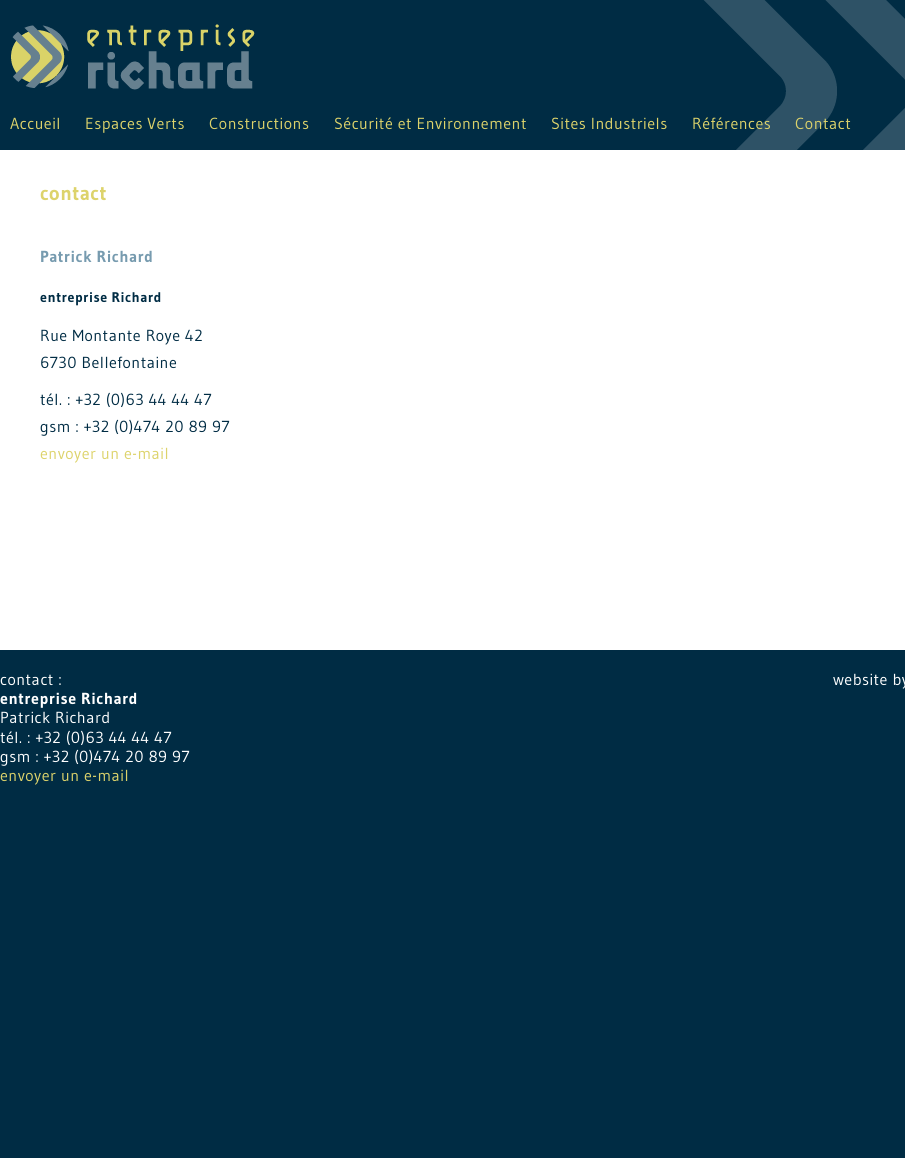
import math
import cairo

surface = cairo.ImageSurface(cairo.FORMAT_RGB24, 905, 1158)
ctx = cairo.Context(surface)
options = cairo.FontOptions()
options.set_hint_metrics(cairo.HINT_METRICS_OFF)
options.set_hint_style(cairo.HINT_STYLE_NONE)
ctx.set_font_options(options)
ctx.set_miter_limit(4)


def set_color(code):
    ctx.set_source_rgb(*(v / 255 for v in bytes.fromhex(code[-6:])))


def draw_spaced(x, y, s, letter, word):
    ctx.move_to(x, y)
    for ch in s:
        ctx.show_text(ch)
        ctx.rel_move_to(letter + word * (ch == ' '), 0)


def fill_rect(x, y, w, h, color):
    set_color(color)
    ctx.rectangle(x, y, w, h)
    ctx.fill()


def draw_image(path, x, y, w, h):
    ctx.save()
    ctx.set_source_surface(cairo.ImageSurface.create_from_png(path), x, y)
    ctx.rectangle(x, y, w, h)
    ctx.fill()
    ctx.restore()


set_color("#002c44")
ctx.paint()
draw_image("assets/img1.png", 11, 0, 894, 110)
draw_image("assets/img2.png", 736, 110, 169, 40)
ctx.select_font_face("Gudea")
ctx.set_font_size(16)
set_color("#ddd36b")
draw_spaced(10, 129, "Accueil", 0.5, 0)
draw_spaced(85, 129, "Espaces Verts", 0.5, 0)
draw_spaced(209, 129, "Constructions", 0.5, 0)
draw_spaced(334, 129, "Sécurité et Environnement", 0.5, 0)
draw_spaced(551, 129, "Sites Industriels", 0.5, 0)
draw_spaced(692, 129, "Références", 0.5, 0)
draw_spaced(795, 129, "Contact", 0.5, 0)
fill_rect(0, 150, 905, 500, "#ffffff")
ctx.select_font_face("Gudea", cairo.FONT_SLANT_NORMAL, cairo.FONT_WEIGHT_BOLD)
ctx.set_font_size(20)
set_color("#ddd36b")
draw_spaced(40, 200, "contact", 0.5, 0)
ctx.set_font_size(16)
set_color("#779baf")
draw_spaced(40, 262, "Patrick Richard", 0.5, 0)
ctx.set_font_size(14)
set_color("#002c44")
draw_spaced(40, 302, "entreprise Richard", 0.5, 0)
ctx.select_font_face("Gudea")
ctx.set_font_size(16)
draw_spaced(40, 341, "Rue Montante Roye 42", 0.5, 0)
draw_spaced(40, 368, "6730 Bellefontaine", 0.5, 0)
draw_spaced(40, 405, "tél. : +32 (0)63 44 44 47", 0.5, 0)
draw_spaced(40, 432, "gsm : +32 (0)474 20 89 97", 0.5, 0)
set_color("#ddd36b")
draw_spaced(40, 459, "envoyer un e-mail", 0.5, 0)
set_color("#ffffff")
draw_spaced(0, 685, "contact :", 0.5, 0)
ctx.select_font_face("Gudea", cairo.FONT_SLANT_NORMAL, cairo.FONT_WEIGHT_BOLD)
draw_spaced(0, 704, "entreprise Richard", 0.5, 0)
ctx.select_font_face("Gudea")
draw_spaced(0, 723, "Patrick Richard", 0.5, 0)
draw_spaced(0, 743, "tél. : +32 (0)63 44 44 47", 0.5, 0)
draw_spaced(0, 762, "gsm : +32 (0)474 20 89 97", 0.5, 0)
set_color("#ddd36b")
draw_spaced(0, 781, "envoyer un e-mail", 0.5, 0)
set_color("#ffffff")
draw_spaced(833, 685, "website by", 0.5, 0)
surface.write_to_png("output.png")
